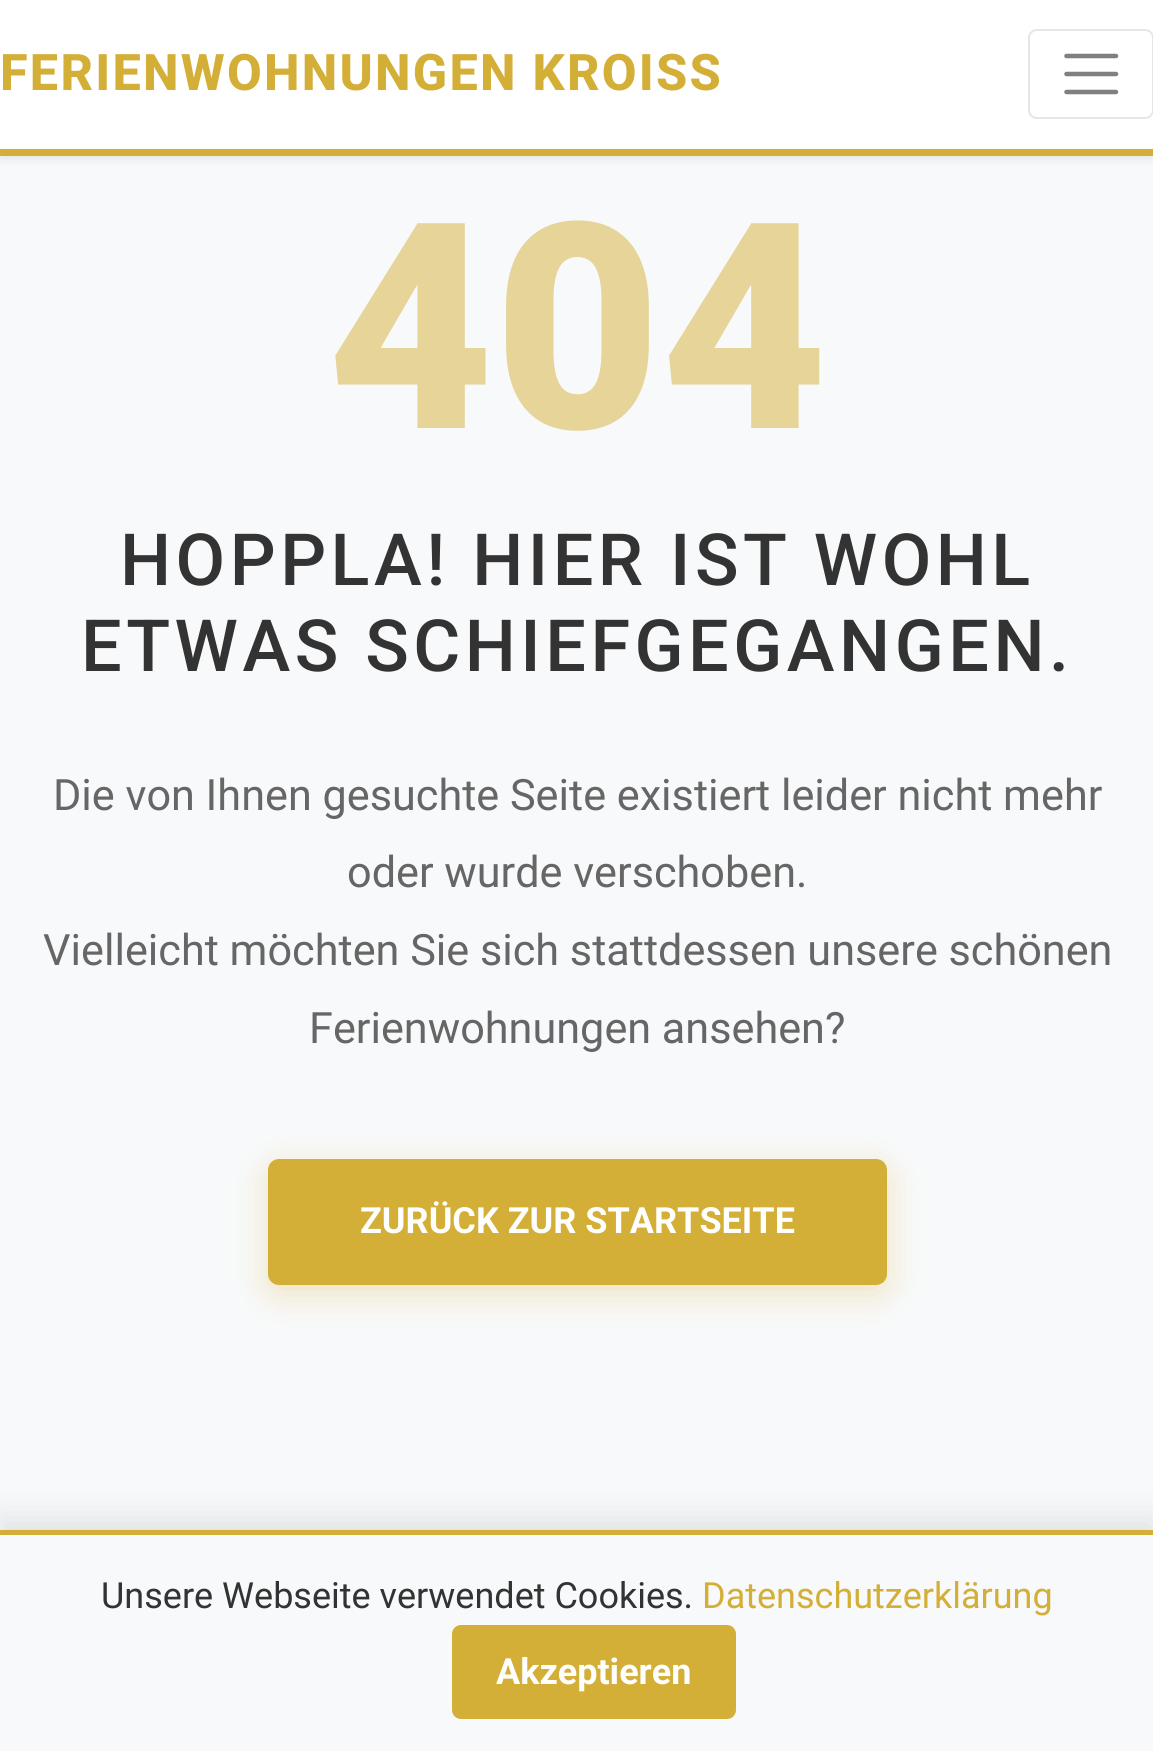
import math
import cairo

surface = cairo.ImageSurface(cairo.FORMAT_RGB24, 1153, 1751)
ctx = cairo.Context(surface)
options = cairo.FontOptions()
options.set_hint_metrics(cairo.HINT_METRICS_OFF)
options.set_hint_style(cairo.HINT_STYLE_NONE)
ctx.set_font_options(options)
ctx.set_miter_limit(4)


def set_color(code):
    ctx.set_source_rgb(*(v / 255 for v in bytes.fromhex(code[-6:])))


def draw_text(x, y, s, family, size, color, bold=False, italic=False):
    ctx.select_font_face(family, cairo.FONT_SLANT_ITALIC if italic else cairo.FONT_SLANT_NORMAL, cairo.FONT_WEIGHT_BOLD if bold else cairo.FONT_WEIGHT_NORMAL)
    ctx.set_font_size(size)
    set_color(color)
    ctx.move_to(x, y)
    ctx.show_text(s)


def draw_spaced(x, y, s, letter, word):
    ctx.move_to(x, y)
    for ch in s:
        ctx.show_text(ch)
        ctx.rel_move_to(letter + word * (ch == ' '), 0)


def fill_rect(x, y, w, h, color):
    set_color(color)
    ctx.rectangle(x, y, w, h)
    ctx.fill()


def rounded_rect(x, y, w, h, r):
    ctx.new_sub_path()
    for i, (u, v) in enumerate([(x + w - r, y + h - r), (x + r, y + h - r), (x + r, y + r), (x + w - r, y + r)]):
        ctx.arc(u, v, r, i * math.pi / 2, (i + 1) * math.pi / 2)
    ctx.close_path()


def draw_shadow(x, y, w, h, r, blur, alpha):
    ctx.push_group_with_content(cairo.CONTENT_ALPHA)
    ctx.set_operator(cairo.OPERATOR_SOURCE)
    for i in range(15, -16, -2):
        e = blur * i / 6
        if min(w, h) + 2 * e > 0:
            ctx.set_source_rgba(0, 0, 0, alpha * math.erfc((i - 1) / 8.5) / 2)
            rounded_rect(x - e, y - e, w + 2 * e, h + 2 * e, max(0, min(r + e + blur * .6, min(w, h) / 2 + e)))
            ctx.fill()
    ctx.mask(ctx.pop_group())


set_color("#f8f9fa")
ctx.paint()
set_color("#000000")
draw_shadow(0, 5, 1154, 155, 0, 4.5, 0.07)
fill_rect(0, 0, 1153, 149, "#ffffff")
fill_rect(0, 149, 1153, 7, "#d4af37")
ctx.select_font_face("Roboto ExtraBold")
ctx.set_font_size(50.4)
draw_spaced(0, 90, "FERIENWOHNUNGEN KROISS", 2.25, 0)
rounded_rect(1029, 30, 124, 88, 8)
set_color("#e6e6e6")
ctx.stroke()
ctx.new_path()
ctx.move_to(1066.5, 56)
ctx.line_to(1116, 56)
ctx.move_to(1066.5, 74)
ctx.line_to(1116, 74)
ctx.move_to(1066.5, 92)
ctx.line_to(1116, 92)
set_color("#808080")
ctx.set_line_width(4.5)
ctx.set_line_cap(cairo.LINE_CAP_ROUND)
ctx.stroke()
draw_text(327, 428, "404", "Roboto Black", 288, "#e6d499")
ctx.select_font_face("Roboto Medium")
ctx.set_font_size(72)
set_color("#333333")
draw_spaced(120, 585, "HOPPLA! HIER IST WOHL", 4.5, 0)
draw_spaced(81, 671, "ETWAS SCHIEFGEGANGEN.", 4.5, 0)
draw_text(53, 810, "Die von Ihnen gesuchte Seite existiert leider nicht mehr", "Roboto", 43.2, "#666666")
draw_text(347, 887, "oder wurde verschoben.", "Roboto", 43.2, "#666666")
draw_text(43, 965, "Vielleicht möchten Sie sich stattdessen unsere schönen", "Roboto", 43.2, "#666666")
draw_text(309, 1043, "Ferienwohnungen ansehen?", "Roboto", 43.2, "#666666")
set_color("#d4af37")
draw_shadow(268, 1168, 619, 126, 11, 17, 0.3)
set_color("#d4af37")
rounded_rect(268, 1159, 619, 126, 11)
ctx.fill()
draw_text(360, 1233, "ZURÜCK ZUR STARTSEITE", "Roboto", 36, "#ffffff", bold=True)
set_color("#000000")
draw_shadow(0, 1519, 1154, 223, 0, 17, 0.1)
fill_rect(0, 1535, 1153, 216, "#f8f9fa")
fill_rect(0, 1530, 1153, 5, "#d4af37")
draw_text(101, 1608, "Unsere Webseite verwendet Cookies.", "Roboto", 36, "#333333")
draw_text(702, 1608, "Datenschutzerklärung", "Roboto", 36, "#d4af37")
rounded_rect(452, 1625, 284, 94, 9)
ctx.fill()
draw_text(496, 1684, "Akzeptieren", "Roboto", 36, "#ffffff", bold=True)
surface.write_to_png("output.png")
